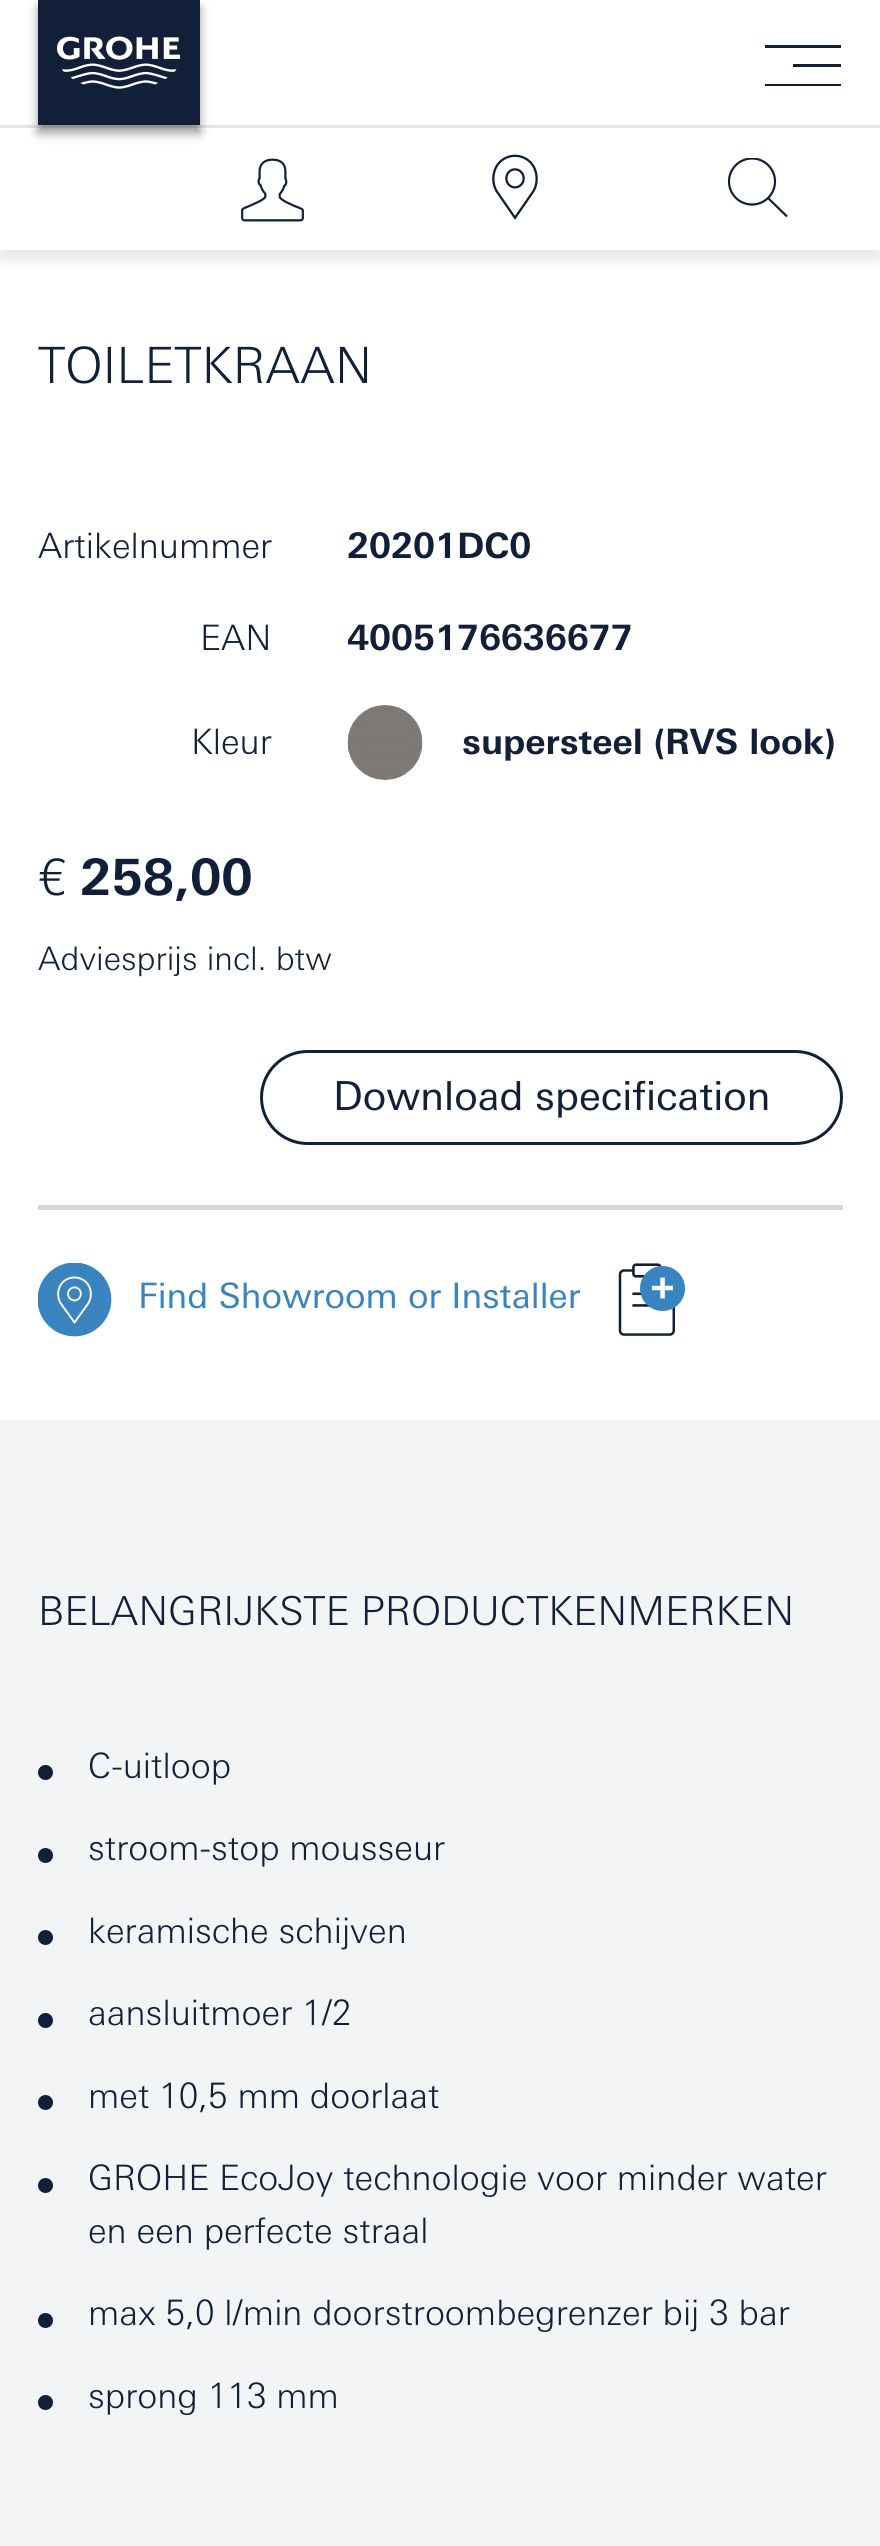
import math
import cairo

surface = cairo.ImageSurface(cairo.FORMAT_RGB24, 880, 2546)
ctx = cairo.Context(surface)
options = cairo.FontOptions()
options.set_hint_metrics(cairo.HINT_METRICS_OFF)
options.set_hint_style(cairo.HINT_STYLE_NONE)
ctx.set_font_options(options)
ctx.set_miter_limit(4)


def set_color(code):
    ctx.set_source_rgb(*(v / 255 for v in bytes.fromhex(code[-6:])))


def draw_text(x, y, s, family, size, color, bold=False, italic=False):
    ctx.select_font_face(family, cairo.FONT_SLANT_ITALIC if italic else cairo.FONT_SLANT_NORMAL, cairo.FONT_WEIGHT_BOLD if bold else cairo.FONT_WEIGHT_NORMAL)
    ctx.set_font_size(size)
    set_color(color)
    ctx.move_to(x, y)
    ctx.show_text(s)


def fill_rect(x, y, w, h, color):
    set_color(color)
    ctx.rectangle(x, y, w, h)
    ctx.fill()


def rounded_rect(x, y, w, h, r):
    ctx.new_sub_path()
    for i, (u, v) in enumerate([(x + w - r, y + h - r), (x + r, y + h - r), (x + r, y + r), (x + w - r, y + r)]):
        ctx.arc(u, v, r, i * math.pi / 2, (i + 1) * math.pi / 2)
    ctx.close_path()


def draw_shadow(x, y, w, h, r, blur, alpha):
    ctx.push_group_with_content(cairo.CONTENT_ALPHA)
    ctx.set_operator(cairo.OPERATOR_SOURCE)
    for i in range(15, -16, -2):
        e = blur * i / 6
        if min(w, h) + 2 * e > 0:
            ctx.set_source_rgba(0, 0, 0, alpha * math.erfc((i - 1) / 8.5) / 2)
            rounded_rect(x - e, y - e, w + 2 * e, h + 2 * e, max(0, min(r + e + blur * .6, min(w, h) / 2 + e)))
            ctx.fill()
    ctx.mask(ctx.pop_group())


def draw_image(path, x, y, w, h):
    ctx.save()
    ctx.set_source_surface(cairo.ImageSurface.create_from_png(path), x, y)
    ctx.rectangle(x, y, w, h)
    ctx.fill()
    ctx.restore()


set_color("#ffffff")
ctx.paint()
set_color("#000000")
draw_shadow(0, 135, 880, 125, 0, 6, 0.1)
fill_rect(0, 128, 880, 122, "#ffffff")
fill_rect(0, 125, 880, 3, "#e6e6e6")
set_color("#000000")
draw_shadow(38, 8, 162, 125, 0, 5, 0.4)
fill_rect(38, 0, 162, 125, "#112038")
draw_image("assets/img1.png", 57, 36, 123, 53)
ctx.new_path()
ctx.move_to(765, 45)
ctx.line_to(841, 45)
ctx.line_to(841, 48)
ctx.line_to(765, 48)
ctx.close_path()
ctx.move_to(793, 64)
ctx.line_to(841, 64)
ctx.line_to(841, 67)
ctx.line_to(793, 67)
ctx.close_path()
ctx.move_to(765, 84)
ctx.line_to(841, 84)
ctx.line_to(841, 86)
ctx.line_to(765, 86)
ctx.close_path()
ctx.fill()
draw_image("assets/img2.png", 241, 158, 63, 64)
draw_image("assets/img3.png", 492, 154, 46, 66)
ctx.new_path()
ctx.move_to(787, 216.5)
ctx.line_to(767.5, 197.5)
ctx.close_path()
ctx.set_line_width(2.2)
ctx.stroke()
ctx.save()
ctx.rectangle(728, 158, 60, 60)
ctx.clip()
ctx.arc(752, 181.5, 23, 0, 2 * math.pi)
ctx.stroke()
ctx.restore()
draw_text(38, 383, "TOILETKRAAN", "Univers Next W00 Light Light", 50, "#112038")
draw_text(38, 558, "Artikelnummer", "Univers Next W00 Light Light", 35, "#112038")
draw_text(347, 558, "20201DC0", "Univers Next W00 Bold", 35, "#112038", bold=True)
draw_text(200, 650, "EAN", "Univers Next W00 Light Light", 35, "#112038")
draw_text(347, 650, "4005176636677", "Univers Next W00 Bold", 35, "#112038", bold=True)
draw_text(191, 754, "Kleur", "Univers Next W00 Light Light", 35, "#112038")
draw_image("assets/img4.png", 347, 705, 76, 75)
draw_text(462, 754, "supersteel (RVS look)", "Univers Next W00 Bold", 35, "#112038", bold=True)
draw_text(38, 895, "€", "Univers Next W00 Light Light", 50, "#112038")
draw_text(80, 895, "258,00", "Univers Next W00 Bold", 50, "#112038", bold=True)
draw_text(38, 970, "Adviesprijs incl. btw", "Univers Next W00 Light Light", 32.5, "#112038")
rounded_rect(261.5, 1051.5, 580, 92, 46)
ctx.set_line_width(3)
ctx.stroke()
draw_text(333, 1110, "Download specification", "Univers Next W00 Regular", 40, "#112038")
fill_rect(38, 1205, 805, 5, "#d1d8df")
draw_image("assets/img5.png", 38, 1263, 74, 74)
draw_text(138, 1308, "Find Showroom or Installer", "Univers Next W00 Regular", 35, "#3984be")
draw_image("assets/img6.png", 618, 1263, 67, 73)
fill_rect(0, 1420, 880, 1126, "#f2f4f6")
draw_text(38, 1625, "BELANGRIJKSTE PRODUCTKENMERKEN", "Univers Next W00 Light Light", 40, "#112038")
ctx.new_path()
ctx.arc(45.5, 1772.5, 7.5, 0, 2 * math.pi)
ctx.fill()
draw_text(88, 1778, "C-uitloop", "Univers Next W00 Light Light", 35, "#112038")
ctx.new_path()
ctx.arc(45.5, 1855.5, 7.5, 0, 2 * math.pi)
ctx.fill()
draw_text(88, 1860, "stroom-stop mousseur", "Univers Next W00 Light Light", 35, "#112038")
ctx.new_path()
ctx.arc(45.5, 1937.5, 7.5, 0, 2 * math.pi)
ctx.fill()
draw_text(88, 1943, "keramische schijven", "Univers Next W00 Light Light", 35, "#112038")
ctx.new_path()
ctx.arc(45.5, 2020.5, 7.5, 0, 2 * math.pi)
ctx.fill()
draw_text(88, 2025, "aansluitmoer 1/2", "Univers Next W00 Light Light", 35, "#112038")
ctx.new_path()
ctx.arc(45.5, 2102.5, 7.5, 0, 2 * math.pi)
ctx.fill()
draw_text(88, 2108, "met 10,5 mm doorlaat", "Univers Next W00 Light Light", 35, "#112038")
ctx.new_path()
ctx.arc(45.5, 2185.5, 7.5, 0, 2 * math.pi)
ctx.fill()
draw_text(88, 2190, "GROHE EcoJoy technologie voor minder water", "Univers Next W00 Light Light", 35, "#112038")
draw_text(88, 2243, "en een perfecte straal", "Univers Next W00 Light Light", 35, "#112038")
ctx.new_path()
ctx.arc(45.5, 2320.5, 7.5, 0, 2 * math.pi)
ctx.fill()
draw_text(88, 2325, "max 5,0 l/min doorstroombegrenzer bij 3 bar", "Univers Next W00 Light Light", 35, "#112038")
ctx.new_path()
ctx.arc(45.5, 2402.5, 7.5, 0, 2 * math.pi)
ctx.fill()
draw_text(88, 2408, "sprong 113 mm", "Univers Next W00 Light Light", 35, "#112038")
surface.write_to_png("output.png")
